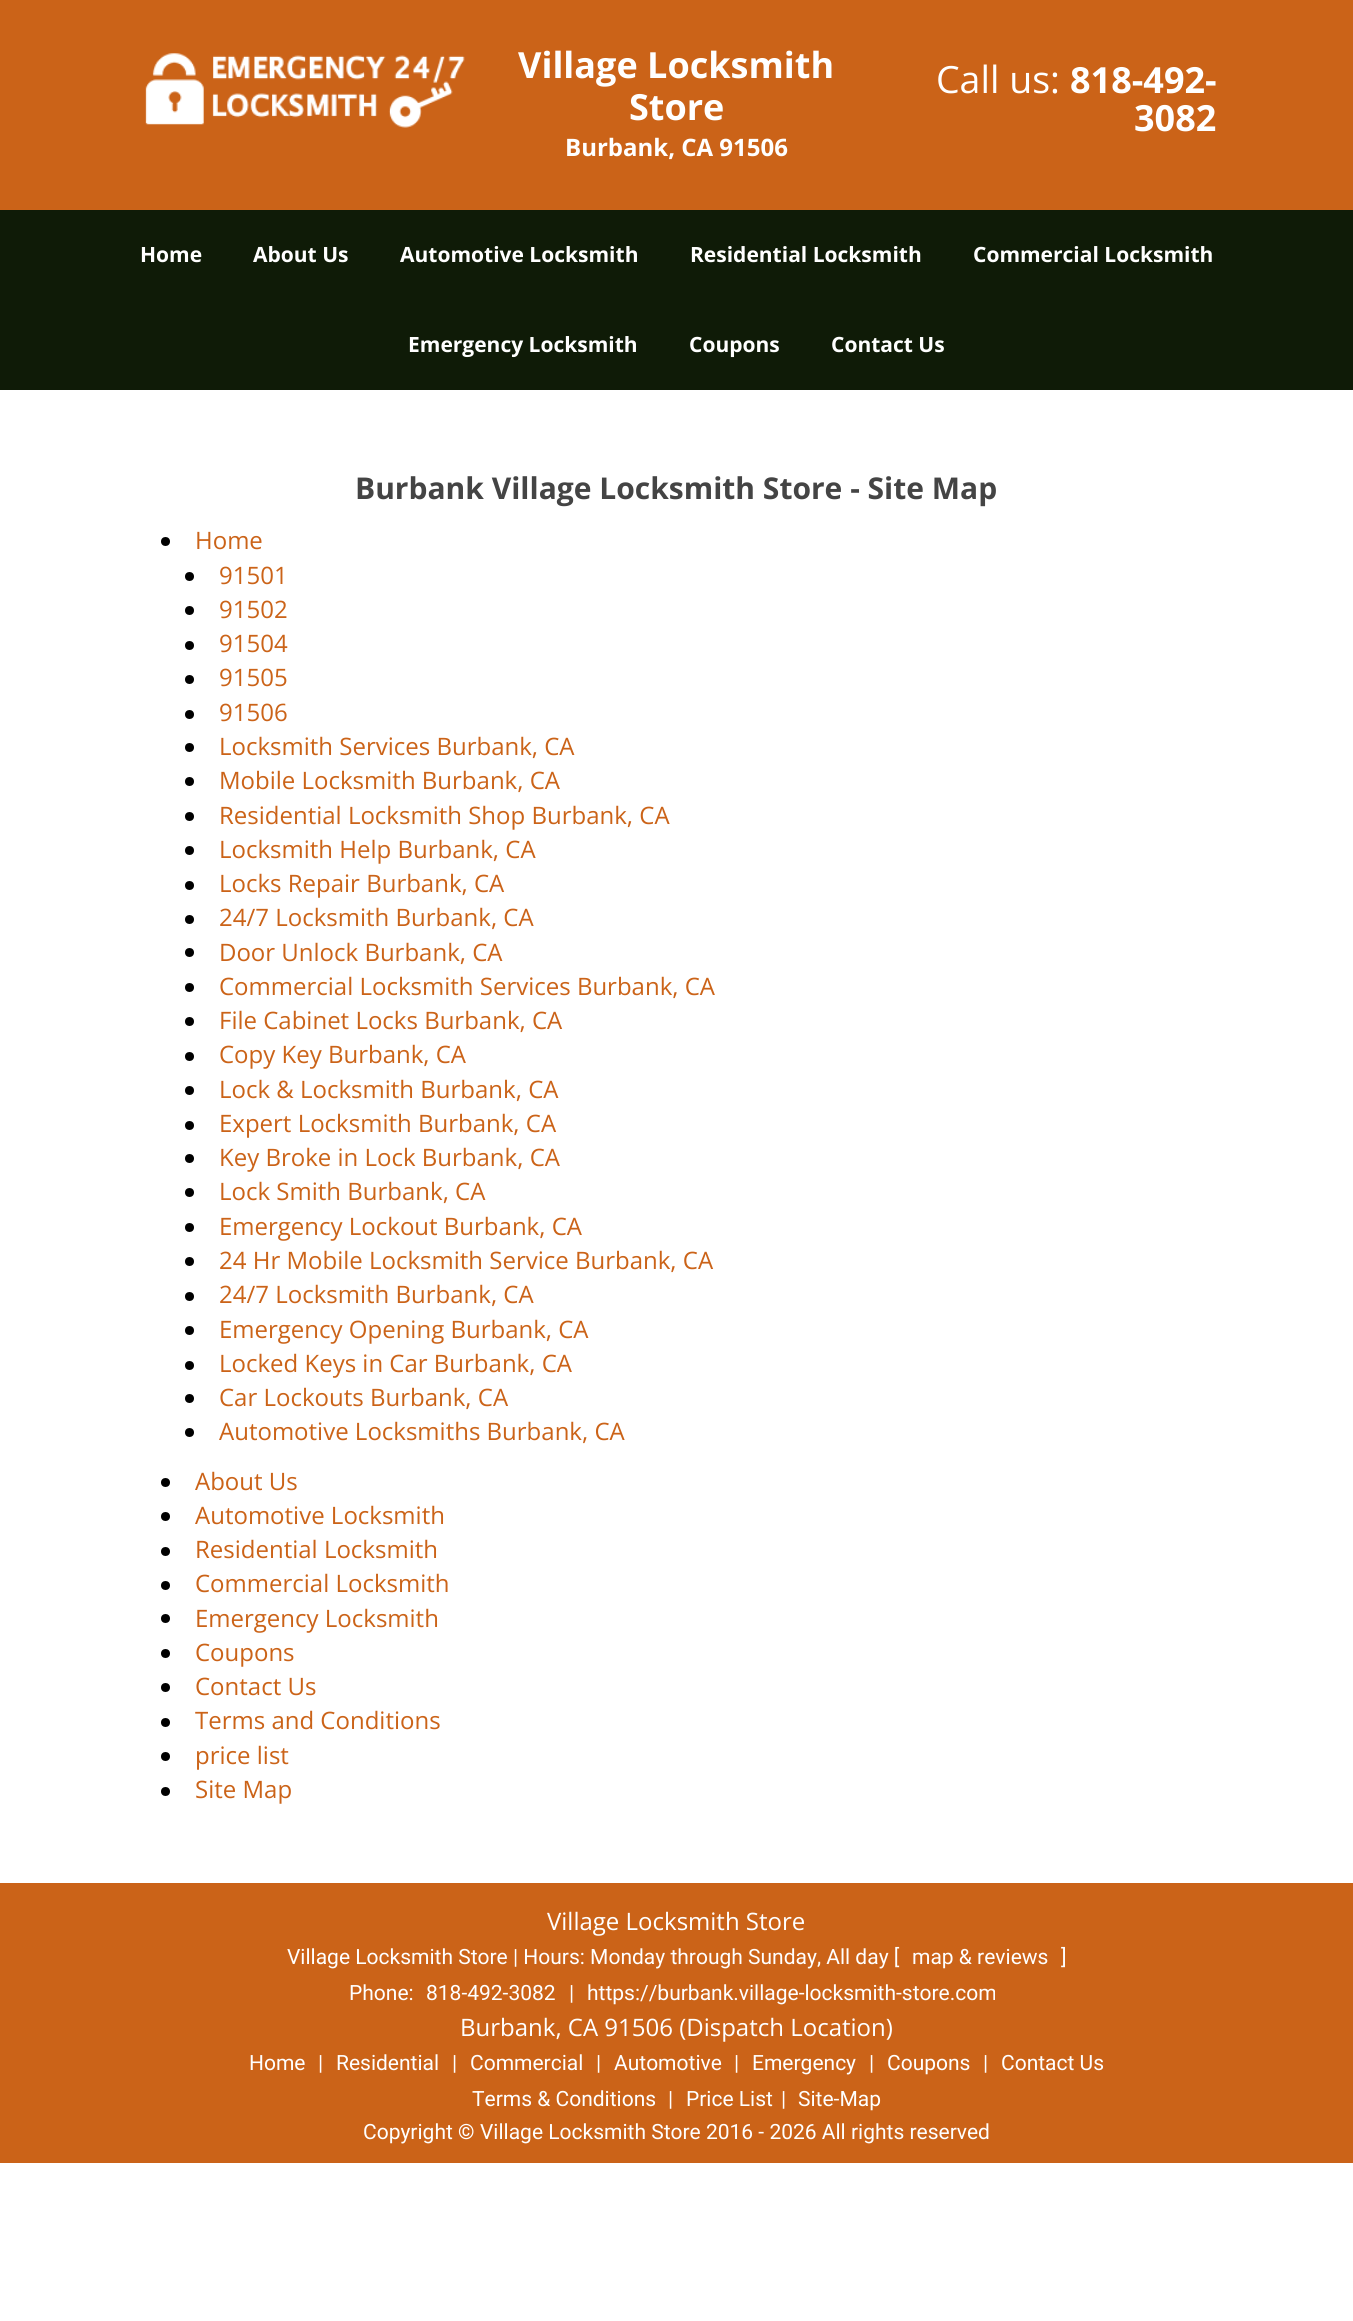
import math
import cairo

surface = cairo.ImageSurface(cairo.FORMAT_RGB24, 1353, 2321)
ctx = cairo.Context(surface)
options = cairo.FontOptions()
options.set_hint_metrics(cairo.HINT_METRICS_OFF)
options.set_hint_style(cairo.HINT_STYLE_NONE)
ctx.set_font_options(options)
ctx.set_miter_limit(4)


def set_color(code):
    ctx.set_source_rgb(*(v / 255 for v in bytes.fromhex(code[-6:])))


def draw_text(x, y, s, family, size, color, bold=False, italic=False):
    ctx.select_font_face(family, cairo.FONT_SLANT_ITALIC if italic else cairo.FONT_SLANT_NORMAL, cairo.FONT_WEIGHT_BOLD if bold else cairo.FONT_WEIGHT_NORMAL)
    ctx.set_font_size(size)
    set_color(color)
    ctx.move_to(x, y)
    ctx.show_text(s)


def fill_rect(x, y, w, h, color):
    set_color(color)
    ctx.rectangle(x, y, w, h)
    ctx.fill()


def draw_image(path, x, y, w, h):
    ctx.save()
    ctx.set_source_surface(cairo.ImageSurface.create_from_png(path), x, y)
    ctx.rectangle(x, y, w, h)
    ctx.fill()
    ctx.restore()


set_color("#ffffff")
ctx.paint()
fill_rect(0, 0, 1353, 210, "#cb6318")
draw_image("assets/img1.png", 145, 53, 320, 75)
draw_text(518, 78, "Village Locksmith", "Open Sans", 36, "#ffffff", bold=True)
draw_text(629, 120, "Store", "Open Sans", 36, "#ffffff", bold=True)
draw_text(565, 156, "Burbank, CA 91506", "Open Sans", 24, "#ffffff", bold=True)
draw_text(936, 93, "Call us:", "Open Sans", 37.5, "#ffffff")
draw_text(1070, 93, "818-492-", "Open Sans", 36, "#ffffff", bold=True)
draw_text(1134, 131, "3082", "Open Sans", 36, "#ffffff", bold=True)
fill_rect(0, 210, 1353, 180, "#0f1b07")
draw_text(140, 262, "Home", "Open Sans", 21, "#ffffff", bold=True)
draw_text(253, 262, "About Us", "Open Sans", 21, "#ffffff", bold=True)
draw_text(400, 262, "Automotive Locksmith", "Open Sans", 21, "#ffffff", bold=True)
draw_text(690, 262, "Residential Locksmith", "Open Sans", 21, "#ffffff", bold=True)
draw_text(973, 262, "Commercial Locksmith", "Open Sans", 21, "#ffffff", bold=True)
draw_text(408, 352, "Emergency Locksmith", "Open Sans", 21, "#ffffff", bold=True)
draw_text(689, 352, "Coupons", "Open Sans", 21, "#ffffff", bold=True)
draw_text(831, 352, "Contact Us", "Open Sans", 21, "#ffffff", bold=True)
draw_text(355, 499, "Burbank Village Locksmith Store - Site Map", "Open Sans", 30, "#444444", bold=True)
set_color("#000000")
ctx.new_path()
ctx.arc(165.5, 541.5, 4.5, 0, 2 * math.pi)
ctx.fill()
draw_text(195, 549, "Home", "Open Sans", 24, "#cb6318")
set_color("#000000")
ctx.new_path()
ctx.arc(189.5, 576.5, 4.5, 0, 2 * math.pi)
ctx.fill()
draw_text(219, 584, "91501", "Open Sans", 24, "#cb6318")
set_color("#000000")
ctx.new_path()
ctx.arc(189.5, 610.5, 4.5, 0, 2 * math.pi)
ctx.fill()
draw_text(219, 618, "91502", "Open Sans", 24, "#cb6318")
set_color("#000000")
ctx.new_path()
ctx.arc(189.5, 645.5, 4.5, 0, 2 * math.pi)
ctx.fill()
draw_text(219, 652, "91504", "Open Sans", 24, "#cb6318")
set_color("#000000")
ctx.new_path()
ctx.arc(189.5, 679.5, 4.5, 0, 2 * math.pi)
ctx.fill()
draw_text(219, 686, "91505", "Open Sans", 24, "#cb6318")
set_color("#000000")
ctx.new_path()
ctx.arc(189.5, 714.5, 4.5, 0, 2 * math.pi)
ctx.fill()
draw_text(219, 721, "91506", "Open Sans", 24, "#cb6318")
set_color("#000000")
ctx.new_path()
ctx.arc(189.5, 747.5, 4.5, 0, 2 * math.pi)
ctx.fill()
draw_text(219, 755, "Locksmith Services Burbank, CA", "Open Sans", 24, "#cb6318")
set_color("#000000")
ctx.new_path()
ctx.arc(189.5, 781.5, 4.5, 0, 2 * math.pi)
ctx.fill()
draw_text(219, 789, "Mobile Locksmith Burbank, CA", "Open Sans", 24, "#cb6318")
set_color("#000000")
ctx.new_path()
ctx.arc(189.5, 816.5, 4.5, 0, 2 * math.pi)
ctx.fill()
draw_text(219, 824, "Residential Locksmith Shop Burbank, CA", "Open Sans", 24, "#cb6318")
set_color("#000000")
ctx.new_path()
ctx.arc(189.5, 850.5, 4.5, 0, 2 * math.pi)
ctx.fill()
draw_text(219, 858, "Locksmith Help Burbank, CA", "Open Sans", 24, "#cb6318")
set_color("#000000")
ctx.new_path()
ctx.arc(189.5, 885.5, 4.5, 0, 2 * math.pi)
ctx.fill()
draw_text(219, 892, "Locks Repair Burbank, CA", "Open Sans", 24, "#cb6318")
set_color("#000000")
ctx.new_path()
ctx.arc(189.5, 919.5, 4.5, 0, 2 * math.pi)
ctx.fill()
draw_text(219, 926, "24/7 Locksmith Burbank, CA", "Open Sans", 24, "#cb6318")
set_color("#000000")
ctx.new_path()
ctx.arc(189.5, 952.5, 4.5, 0, 2 * math.pi)
ctx.fill()
draw_text(219, 961, "Door Unlock Burbank, CA", "Open Sans", 24, "#cb6318")
set_color("#000000")
ctx.new_path()
ctx.arc(189.5, 987.5, 4.5, 0, 2 * math.pi)
ctx.fill()
draw_text(219, 995, "Commercial Locksmith Services Burbank, CA", "Open Sans", 24, "#cb6318")
set_color("#000000")
ctx.new_path()
ctx.arc(189.5, 1021.5, 4.5, 0, 2 * math.pi)
ctx.fill()
draw_text(219, 1029, "File Cabinet Locks Burbank, CA", "Open Sans", 24, "#cb6318")
set_color("#000000")
ctx.new_path()
ctx.arc(189.5, 1056.5, 4.5, 0, 2 * math.pi)
ctx.fill()
draw_text(219, 1063, "Copy Key Burbank, CA", "Open Sans", 24, "#cb6318")
set_color("#000000")
ctx.new_path()
ctx.arc(189.5, 1090.5, 4.5, 0, 2 * math.pi)
ctx.fill()
draw_text(219, 1098, "Lock & Locksmith Burbank, CA", "Open Sans", 24, "#cb6318")
set_color("#000000")
ctx.new_path()
ctx.arc(189.5, 1125.5, 4.5, 0, 2 * math.pi)
ctx.fill()
draw_text(219, 1132, "Expert Locksmith Burbank, CA", "Open Sans", 24, "#cb6318")
set_color("#000000")
ctx.new_path()
ctx.arc(189.5, 1158.5, 4.5, 0, 2 * math.pi)
ctx.fill()
draw_text(219, 1166, "Key Broke in Lock Burbank, CA", "Open Sans", 24, "#cb6318")
set_color("#000000")
ctx.new_path()
ctx.arc(189.5, 1192.5, 4.5, 0, 2 * math.pi)
ctx.fill()
draw_text(219, 1200, "Lock Smith Burbank, CA", "Open Sans", 24, "#cb6318")
set_color("#000000")
ctx.new_path()
ctx.arc(189.5, 1227.5, 4.5, 0, 2 * math.pi)
ctx.fill()
draw_text(219, 1235, "Emergency Lockout Burbank, CA", "Open Sans", 24, "#cb6318")
set_color("#000000")
ctx.new_path()
ctx.arc(189.5, 1261.5, 4.5, 0, 2 * math.pi)
ctx.fill()
draw_text(219, 1269, "24 Hr Mobile Locksmith Service Burbank, CA", "Open Sans", 24, "#cb6318")
set_color("#000000")
ctx.new_path()
ctx.arc(189.5, 1296.5, 4.5, 0, 2 * math.pi)
ctx.fill()
draw_text(219, 1303, "24/7 Locksmith Burbank, CA", "Open Sans", 24, "#cb6318")
set_color("#000000")
ctx.new_path()
ctx.arc(189.5, 1330.5, 4.5, 0, 2 * math.pi)
ctx.fill()
draw_text(219, 1338, "Emergency Opening Burbank, CA", "Open Sans", 24, "#cb6318")
set_color("#000000")
ctx.new_path()
ctx.arc(189.5, 1365.5, 4.5, 0, 2 * math.pi)
ctx.fill()
draw_text(219, 1372, "Locked Keys in Car Burbank, CA", "Open Sans", 24, "#cb6318")
set_color("#000000")
ctx.new_path()
ctx.arc(189.5, 1398.5, 4.5, 0, 2 * math.pi)
ctx.fill()
draw_text(219, 1406, "Car Lockouts Burbank, CA", "Open Sans", 24, "#cb6318")
set_color("#000000")
ctx.new_path()
ctx.arc(189.5, 1432.5, 4.5, 0, 2 * math.pi)
ctx.fill()
draw_text(219, 1440, "Automotive Locksmiths Burbank, CA", "Open Sans", 24, "#cb6318")
set_color("#000000")
ctx.new_path()
ctx.arc(165.5, 1482.5, 4.5, 0, 2 * math.pi)
ctx.fill()
draw_text(195, 1490, "About Us", "Open Sans", 24, "#cb6318")
set_color("#000000")
ctx.new_path()
ctx.arc(165.5, 1516.5, 4.5, 0, 2 * math.pi)
ctx.fill()
draw_text(195, 1524, "Automotive Locksmith", "Open Sans", 24, "#cb6318")
set_color("#000000")
ctx.new_path()
ctx.arc(165.5, 1551.5, 4.5, 0, 2 * math.pi)
ctx.fill()
draw_text(195, 1558, "Residential Locksmith", "Open Sans", 24, "#cb6318")
set_color("#000000")
ctx.new_path()
ctx.arc(165.5, 1585.5, 4.5, 0, 2 * math.pi)
ctx.fill()
draw_text(195, 1592, "Commercial Locksmith", "Open Sans", 24, "#cb6318")
set_color("#000000")
ctx.new_path()
ctx.arc(165.5, 1618.5, 4.5, 0, 2 * math.pi)
ctx.fill()
draw_text(195, 1627, "Emergency Locksmith", "Open Sans", 24, "#cb6318")
set_color("#000000")
ctx.new_path()
ctx.arc(165.5, 1653.5, 4.5, 0, 2 * math.pi)
ctx.fill()
draw_text(195, 1661, "Coupons", "Open Sans", 24, "#cb6318")
set_color("#000000")
ctx.new_path()
ctx.arc(165.5, 1687.5, 4.5, 0, 2 * math.pi)
ctx.fill()
draw_text(195, 1695, "Contact Us", "Open Sans", 24, "#cb6318")
set_color("#000000")
ctx.new_path()
ctx.arc(165.5, 1722.5, 4.5, 0, 2 * math.pi)
ctx.fill()
draw_text(195, 1729, "Terms and Conditions", "Open Sans", 24, "#cb6318")
set_color("#000000")
ctx.new_path()
ctx.arc(165.5, 1756.5, 4.5, 0, 2 * math.pi)
ctx.fill()
draw_text(195, 1764, "price list", "Open Sans", 24, "#cb6318")
set_color("#000000")
ctx.new_path()
ctx.arc(165.5, 1791.5, 4.5, 0, 2 * math.pi)
ctx.fill()
draw_text(195, 1798, "Site Map", "Open Sans", 24, "#cb6318")
fill_rect(0, 1883, 1353, 280, "#cb6318")
draw_text(547, 1930, "Village Locksmith Store", "Open Sans", 24, "#ffffff")
draw_text(287, 1964, "Village Locksmith Store | Hours: Monday through Sunday, All day [", "Roboto", 21, "#ffffff")
draw_text(912, 1964, "map & reviews", "Roboto", 21, "#ffffff")
draw_text(1061, 1964, "]", "Roboto", 21, "#ffffff")
draw_text(349, 2000, "Phone:", "Roboto", 21, "#ffffff")
draw_text(426, 2000, "818-492-3082", "Roboto", 21, "#ffffff")
draw_text(569, 2000, "|", "Roboto", 21, "#ffffff")
draw_text(587, 2000, "https://burbank.village-locksmith-store.com", "Roboto", 21, "#ffffff")
draw_text(460, 2036, "Burbank, CA 91506 (Dispatch Location)", "Open Sans", 24, "#ffffff")
draw_text(249, 2070, "Home", "Roboto", 21, "#ffffff")
draw_text(318, 2070, "|", "Roboto", 21, "#ffffff")
draw_text(336, 2070, "Residential", "Roboto", 21, "#ffffff")
draw_text(452, 2070, "|", "Roboto", 21, "#ffffff")
draw_text(470, 2070, "Commercial", "Roboto", 21, "#ffffff")
draw_text(596, 2070, "|", "Roboto", 21, "#ffffff")
draw_text(614, 2070, "Automotive", "Roboto", 21, "#ffffff")
draw_text(734, 2070, "|", "Roboto", 21, "#ffffff")
draw_text(752, 2070, "Emergency", "Roboto", 21, "#ffffff")
draw_text(869, 2070, "|", "Roboto", 21, "#ffffff")
draw_text(887, 2070, "Coupons", "Roboto", 21, "#ffffff")
draw_text(983, 2070, "|", "Roboto", 21, "#ffffff")
draw_text(1001, 2070, "Contact Us", "Roboto", 21, "#ffffff")
draw_text(472, 2106, "Terms & Conditions", "Roboto", 21, "#ffffff")
draw_text(668, 2106, "|", "Roboto", 21, "#ffffff")
draw_text(686, 2106, "Price List", "Roboto", 21, "#ffffff")
draw_text(781, 2106, "|", "Roboto", 21, "#ffffff")
draw_text(798, 2106, "Site-Map", "Roboto", 21, "#ffffff")
draw_text(363, 2139, "Copyright", "Roboto", 21, "#ffffff")
draw_text(458, 2139, "©", "Roboto", 21, "#ffffff", bold=True)
draw_text(480, 2139, "Village Locksmith Store 2016 - 2026 All rights reserved", "Roboto", 21, "#ffffff")
surface.write_to_png("output.png")
